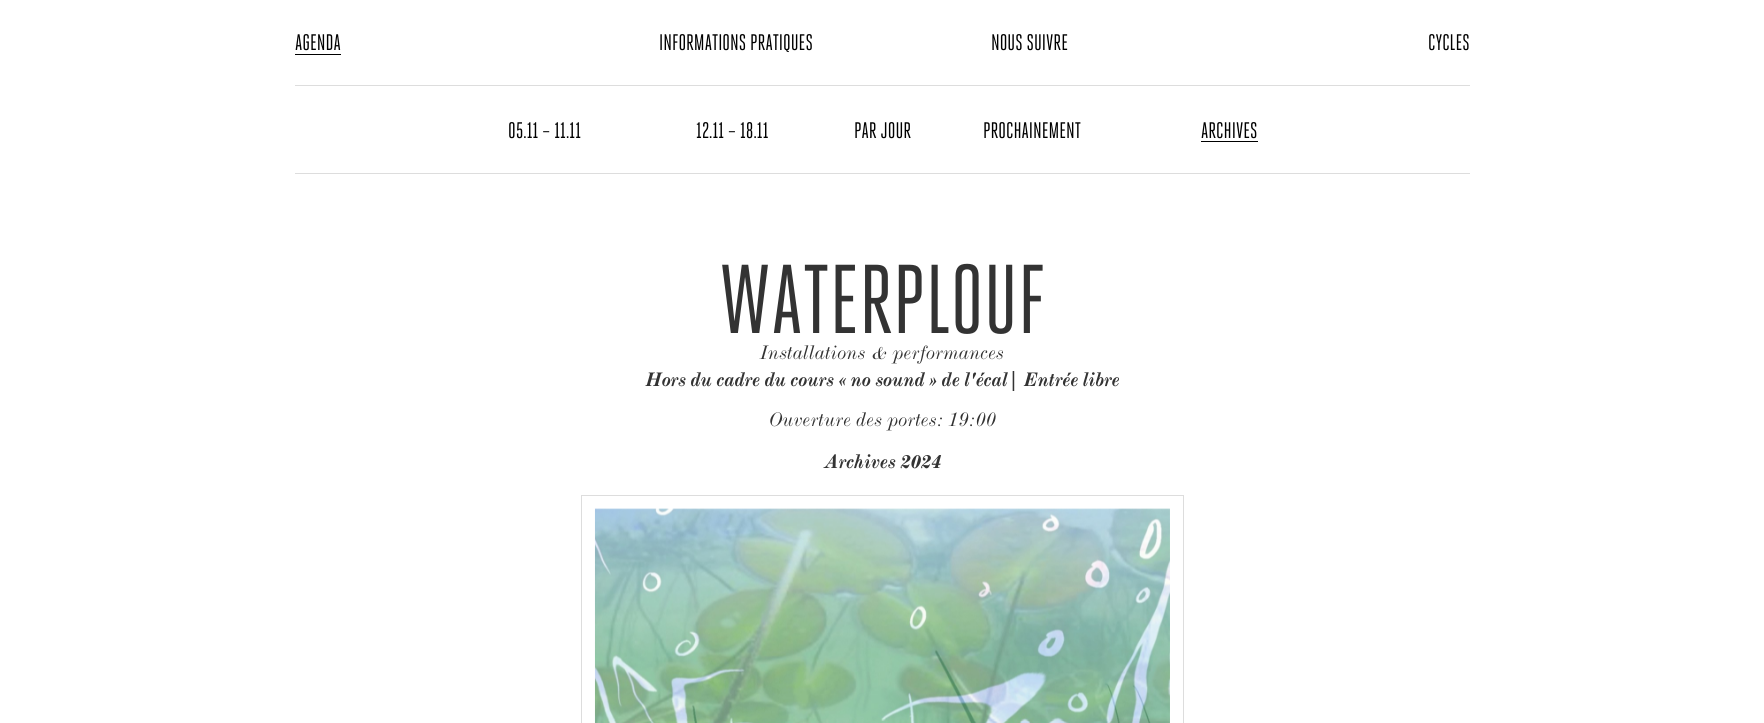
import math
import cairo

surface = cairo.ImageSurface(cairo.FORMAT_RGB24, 1764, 723)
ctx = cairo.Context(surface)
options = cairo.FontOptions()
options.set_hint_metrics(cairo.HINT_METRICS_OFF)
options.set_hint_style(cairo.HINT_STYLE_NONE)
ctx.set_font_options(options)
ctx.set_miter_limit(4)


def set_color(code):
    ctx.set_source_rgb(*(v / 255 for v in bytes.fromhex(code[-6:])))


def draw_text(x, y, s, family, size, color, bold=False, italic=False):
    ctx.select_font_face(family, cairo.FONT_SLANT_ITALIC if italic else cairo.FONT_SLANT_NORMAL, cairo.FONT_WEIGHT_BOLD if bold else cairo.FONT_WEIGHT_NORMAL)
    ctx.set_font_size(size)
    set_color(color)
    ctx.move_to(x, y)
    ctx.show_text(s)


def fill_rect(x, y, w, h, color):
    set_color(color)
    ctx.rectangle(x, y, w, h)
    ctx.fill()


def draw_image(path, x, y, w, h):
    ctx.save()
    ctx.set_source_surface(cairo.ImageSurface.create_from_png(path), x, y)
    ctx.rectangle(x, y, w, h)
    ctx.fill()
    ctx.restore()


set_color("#ffffff")
ctx.paint()
draw_text(295, 50, "AGENDA", "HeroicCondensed", 22.5, "#000000")
fill_rect(295, 54, 46, 1, "#000000")
draw_text(508, 138, "05.11 – 11.11", "HeroicCondensed", 22.5, "#000000")
draw_text(696, 138, "12.11 – 18.11", "HeroicCondensed", 22.5, "#000000")
draw_text(854, 138, "PAR JOUR", "HeroicCondensed", 22.5, "#000000")
draw_text(983, 138, "PROCHAINEMENT", "HeroicCondensed", 22.5, "#000000")
draw_text(1201, 138, "ARCHIVES", "HeroicCondensed", 22.5, "#000000")
fill_rect(1201, 141, 57, 1, "#000000")
fill_rect(295, 173, 1175, 1, "#dddddd")
draw_text(659, 50, "INFORMATIONS PRATIQUES", "HeroicCondensed", 22.5, "#000000")
draw_text(991, 50, "NOUS SUIVRE", "HeroicCondensed", 22.5, "#000000")
draw_text(1428, 50, "CYCLES", "HeroicCondensed", 22.5, "#000000")
fill_rect(295, 85, 1175, 1, "#dddddd")
draw_text(719, 333, "WATERPLOUF", "HeroicCondensed", 97.5, "#333333")
draw_text(760, 359, "Installations & performances", "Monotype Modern", 20, "#333333", italic=True)
draw_text(645, 386, "Hors du cadre du cours « no sound » de l'écal| Entrée libre", "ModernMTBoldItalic", 20, "#333333", bold=True, italic=True)
draw_text(769, 426, "Ouverture des portes: 19:00", "Monotype Modern", 20, "#333333", italic=True)
draw_text(824, 468, "Archives 2024", "ModernMTBoldItalic", 20, "#333333", bold=True, italic=True)
ctx.rectangle(581.5, 495.5, 602, 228)
set_color("#dddddd")
ctx.set_line_width(1)
ctx.stroke()
draw_image("assets/img1.png", 594, 508, 576, 215)
surface.write_to_png("output.png")
